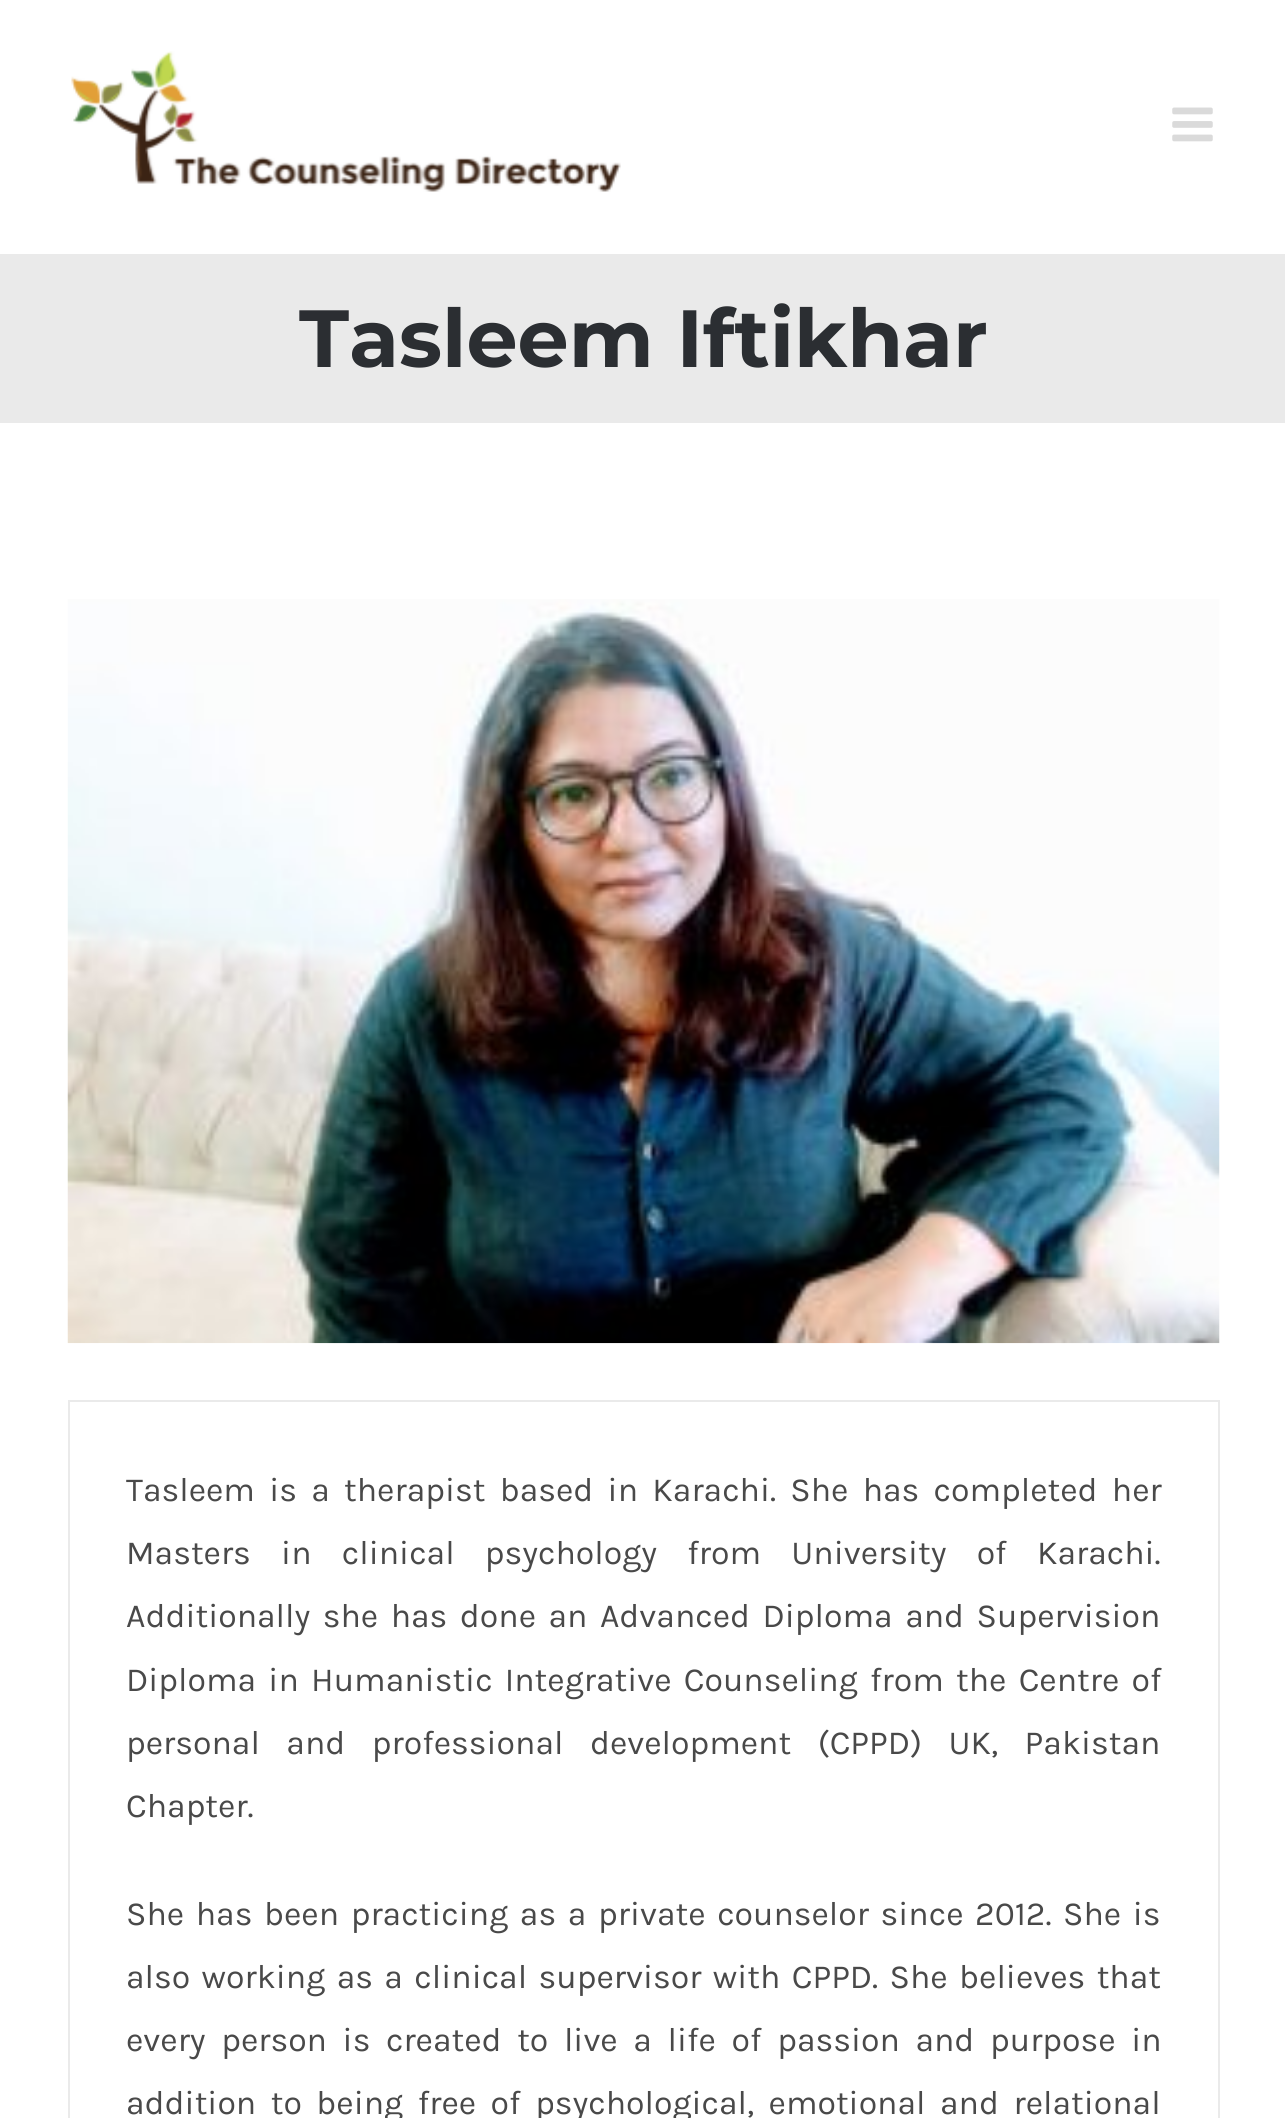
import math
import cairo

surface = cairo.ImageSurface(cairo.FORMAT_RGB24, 1285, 2118)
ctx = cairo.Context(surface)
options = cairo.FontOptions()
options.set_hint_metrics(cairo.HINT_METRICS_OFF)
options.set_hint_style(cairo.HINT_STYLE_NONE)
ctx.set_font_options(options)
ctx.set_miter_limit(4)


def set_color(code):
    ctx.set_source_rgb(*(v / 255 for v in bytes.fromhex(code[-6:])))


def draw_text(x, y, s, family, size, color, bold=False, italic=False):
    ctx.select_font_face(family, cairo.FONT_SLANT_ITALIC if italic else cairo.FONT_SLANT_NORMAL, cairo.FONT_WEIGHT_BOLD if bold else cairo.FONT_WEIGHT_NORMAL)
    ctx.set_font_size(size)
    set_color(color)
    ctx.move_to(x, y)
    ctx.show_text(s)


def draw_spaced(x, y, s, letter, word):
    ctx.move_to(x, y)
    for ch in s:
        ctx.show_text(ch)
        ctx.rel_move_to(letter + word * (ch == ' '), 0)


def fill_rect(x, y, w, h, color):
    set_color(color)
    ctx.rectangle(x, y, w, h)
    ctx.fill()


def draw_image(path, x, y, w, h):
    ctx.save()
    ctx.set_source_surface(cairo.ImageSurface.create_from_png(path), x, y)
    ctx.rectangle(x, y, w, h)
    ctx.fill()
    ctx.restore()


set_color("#ffffff")
ctx.paint()
draw_image("assets/img1.png", 71, 51, 550, 141)
draw_image("assets/img2.png", 1172, 107, 41, 35)
fill_rect(0, 254, 1285, 169, "#eaeaea")
draw_text(299, 367, "Tasleem Iftikhar", "Montserrat", 81, "#2b2e32", bold=True)
draw_image("assets/img3.png", 67, 599, 1153, 745)
ctx.rectangle(69, 1401, 1150, 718)
set_color("#eaeaea")
ctx.stroke()
ctx.select_font_face("Karla")
ctx.set_font_size(33.75)
set_color("#494949")
draw_spaced(126, 1501, "Tasleem is a therapist based in Karachi. She has completed her", 0, 6.25)
draw_spaced(126, 1564, "Masters in clinical psychology from University of Karachi.", 0, 22.25)
draw_spaced(126, 1627, "Additionally she has done an Advanced Diploma and Supervision", 0, 4.5)
draw_spaced(126, 1691, "Diploma in Humanistic Integrative Counseling from the Centre of", 0, 4.25)
draw_spaced(126, 1754, "personal and professional development (CPPD) UK, Pakistan", 0, 18.5)
draw_text(126, 1817, "Chapter.", "Karla", 33.75, "#494949")
draw_spaced(126, 1925, "She has been practicing as a private counselor since 2012. She is", 0, 3.6)
draw_spaced(126, 1988, "also working as a clinical supervisor with CPPD. She believes that", 0, 3.4)
draw_spaced(126, 2051, "every person is created to live a life of passion and purpose in", 0, 7.6)
draw_spaced(126, 2114, "addition to being free of psychological, emotional and relational", 0, 6.5)
surface.write_to_png("output.png")
